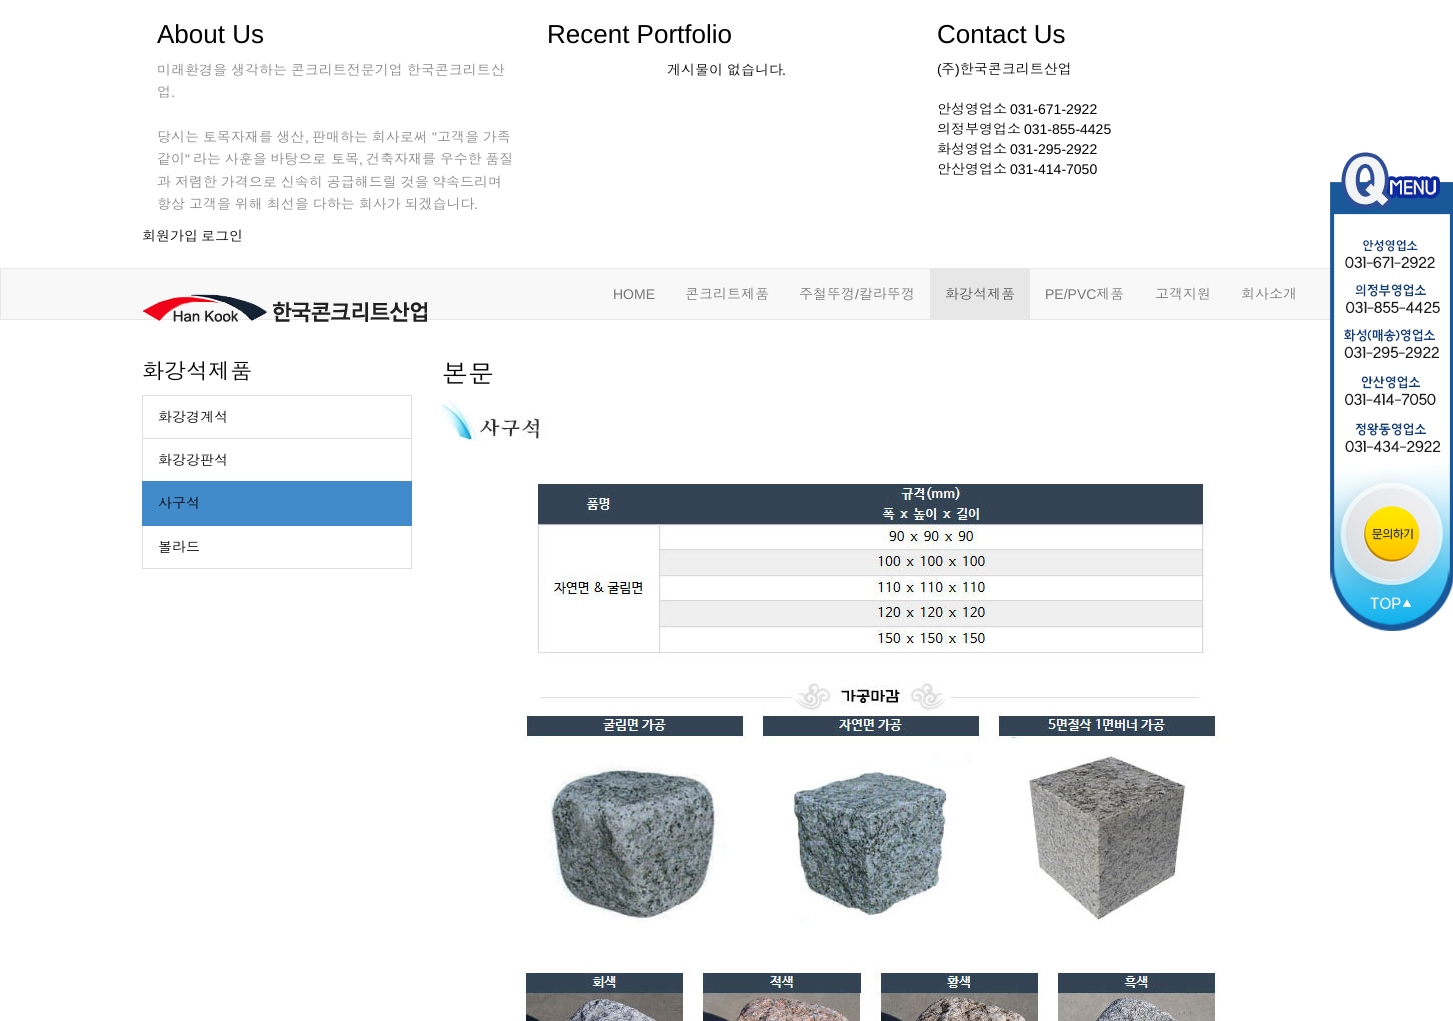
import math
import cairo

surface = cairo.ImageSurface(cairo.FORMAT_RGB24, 1453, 1021)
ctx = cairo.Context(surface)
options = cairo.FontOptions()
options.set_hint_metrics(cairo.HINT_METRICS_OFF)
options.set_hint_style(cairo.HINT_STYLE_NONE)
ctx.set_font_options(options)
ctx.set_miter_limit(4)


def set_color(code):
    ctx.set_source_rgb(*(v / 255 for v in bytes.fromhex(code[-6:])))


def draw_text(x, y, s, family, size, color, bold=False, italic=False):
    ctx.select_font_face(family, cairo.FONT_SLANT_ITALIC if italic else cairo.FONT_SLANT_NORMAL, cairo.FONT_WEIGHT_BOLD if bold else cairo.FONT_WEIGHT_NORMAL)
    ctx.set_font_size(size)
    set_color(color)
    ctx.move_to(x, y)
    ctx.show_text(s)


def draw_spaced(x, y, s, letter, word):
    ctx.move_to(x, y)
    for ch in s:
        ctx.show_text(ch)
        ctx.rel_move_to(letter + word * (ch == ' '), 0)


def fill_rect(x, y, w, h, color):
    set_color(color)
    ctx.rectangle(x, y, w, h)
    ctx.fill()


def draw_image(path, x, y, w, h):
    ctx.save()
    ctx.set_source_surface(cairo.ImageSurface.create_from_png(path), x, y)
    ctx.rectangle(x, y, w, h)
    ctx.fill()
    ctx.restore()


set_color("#ffffff")
ctx.paint()
draw_text(157, 43, "About Us", "Liberation Sans", 26, "#000000")
ctx.select_font_face("Dotum")
ctx.set_font_size(14)
set_color("#888888")
draw_spaced(157, 75, "미래환경을 생각하는 콘크리트전문기업 한국콘크리트산", 0, -0.75)
draw_text(157, 97, "업", "Dotum", 14, "#888888")
draw_text(171, 97, ".", "Liberation Sans", 14, "#888888")
ctx.select_font_face("Dotum")
draw_spaced(157, 142, "당시는 토목자재를 생산", 0, -1)
draw_spaced(312, 142, "판매하는 회사로써", 0, -1)
draw_text(432, 142, "\"", "Liberation Sans", 14, "#888888")
ctx.select_font_face("Dotum")
draw_spaced(437, 142, "고객을 가족", 0, -1)
draw_text(305, 142, ",", "Liberation Sans", 14, "#888888")
draw_text(157, 164, "같이", "Dotum", 14, "#888888")
draw_text(185, 164, "\"", "Liberation Sans", 14, "#888888")
ctx.select_font_face("Dotum")
draw_spaced(193, 164, "라는 사훈을 바탕으로", 0, -1)
draw_text(331, 164, "토목", "Dotum", 14, "#888888")
draw_spaced(366, 164, "건축자재를 우수한 품질", 0, -1)
draw_text(359, 164, ",", "Liberation Sans", 14, "#888888")
ctx.select_font_face("Dotum")
draw_spaced(157, 187, "과 저렴한 가격으로 신속히 공급해드릴 것을", 0, -0.75)
draw_text(432, 187, "약속드리며", "Dotum", 14, "#888888")
draw_spaced(157, 209, "항상 고객을 위해 최선을 다하는 회사가 되겠습니다", 0, -0.75)
draw_text(474, 209, ".", "Liberation Sans", 14, "#888888")
draw_text(547, 43, "Recent Portfolio", "Liberation Sans", 26, "#000000")
ctx.select_font_face("Dotum")
ctx.set_font_size(14)
draw_spaced(667, 75, "게시물이 없습니다", 0, -0.75)
draw_text(782, 75, ".", "Liberation Sans", 14, "#000000")
draw_text(937, 43, "Contact Us", "Liberation Sans", 26, "#000000")
draw_text(937, 74, "(", "Liberation Sans", 14, "#000000")
draw_text(941, 74, "주 한국콘크리트산업", "Dotum", 14, "#000000")
draw_text(955, 74, ")", "Liberation Sans", 14, "#000000")
draw_text(937, 114, "안성영업소", "Dotum", 14, "#000000")
draw_text(1010, 114, "031-671-2922", "Liberation Sans", 14, "#000000")
draw_text(937, 134, "의정부영업소", "Dotum", 14, "#000000")
draw_text(1024, 134, "031-855-4425", "Liberation Sans", 14, "#000000")
draw_text(937, 154, "화성영업소", "Dotum", 14, "#000000")
draw_text(1010, 154, "031-295-2922", "Liberation Sans", 14, "#000000")
draw_text(937, 174, "안산영업소", "Dotum", 14, "#000000")
draw_text(1010, 174, "031-414-7050", "Liberation Sans", 14, "#000000")
draw_text(142, 241, "회원가입", "Dotum", 14, "#000000")
draw_text(201, 241, "로그인", "Dotum", 14, "#000000")
fill_rect(1, 269, 1330, 50, "#f8f8f8")
ctx.rectangle(0.5, 268.5, 1452, 51)
set_color("#e7e7e7")
ctx.set_line_width(1)
ctx.stroke()
draw_image("assets/img1.png", 142, 294, 286, 29)
draw_text(613, 299, "HOME", "Liberation Sans", 14, "#777777")
draw_text(685, 299, "콘크리트제품", "Dotum", 14, "#777777")
draw_text(799, 299, "주철뚜껑", "Dotum", 14, "#777777")
draw_text(855, 299, "/", "Liberation Sans", 14, "#777777")
draw_text(859, 299, "칼라뚜껑", "Dotum", 14, "#777777")
fill_rect(930, 269, 100, 50, "#e7e7e7")
draw_text(945, 299, "화강석제품", "Dotum", 14, "#555555")
draw_text(1045, 299, "PE/PVC", "Liberation Sans", 14, "#777777")
draw_text(1096, 299, "제품", "Dotum", 14, "#777777")
draw_text(1155, 299, "고객지원", "Dotum", 14, "#777777")
draw_text(1241, 299, "회사소개", "Dotum", 14, "#777777")
draw_image("assets/img2.png", 1330, 152, 123, 479)
draw_text(142, 379, "화강석제품", "Dotum", 22, "#000000")
ctx.rectangle(142.5, 395.5, 269, 43)
set_color("#dddddd")
ctx.stroke()
draw_text(158, 422, "화강경계석", "Dotum", 14, "#000000")
ctx.rectangle(142.5, 438.5, 269, 43)
set_color("#dddddd")
ctx.stroke()
draw_text(158, 465, "화강강판석", "Dotum", 14, "#000000")
ctx.rectangle(142.5, 525.5, 269, 43)
set_color("#dddddd")
ctx.stroke()
fill_rect(142, 481, 270, 45, "#428bca")
draw_text(158, 508, "사구석", "Dotum", 14, "#000000")
draw_text(158, 552, "볼라드", "Dotum", 14, "#000000")
draw_text(442, 383, "본문", "Dotum", 26, "#000000")
draw_image("assets/img3.png", 442, 399, 776, 622)
surface.write_to_png("output.png")
